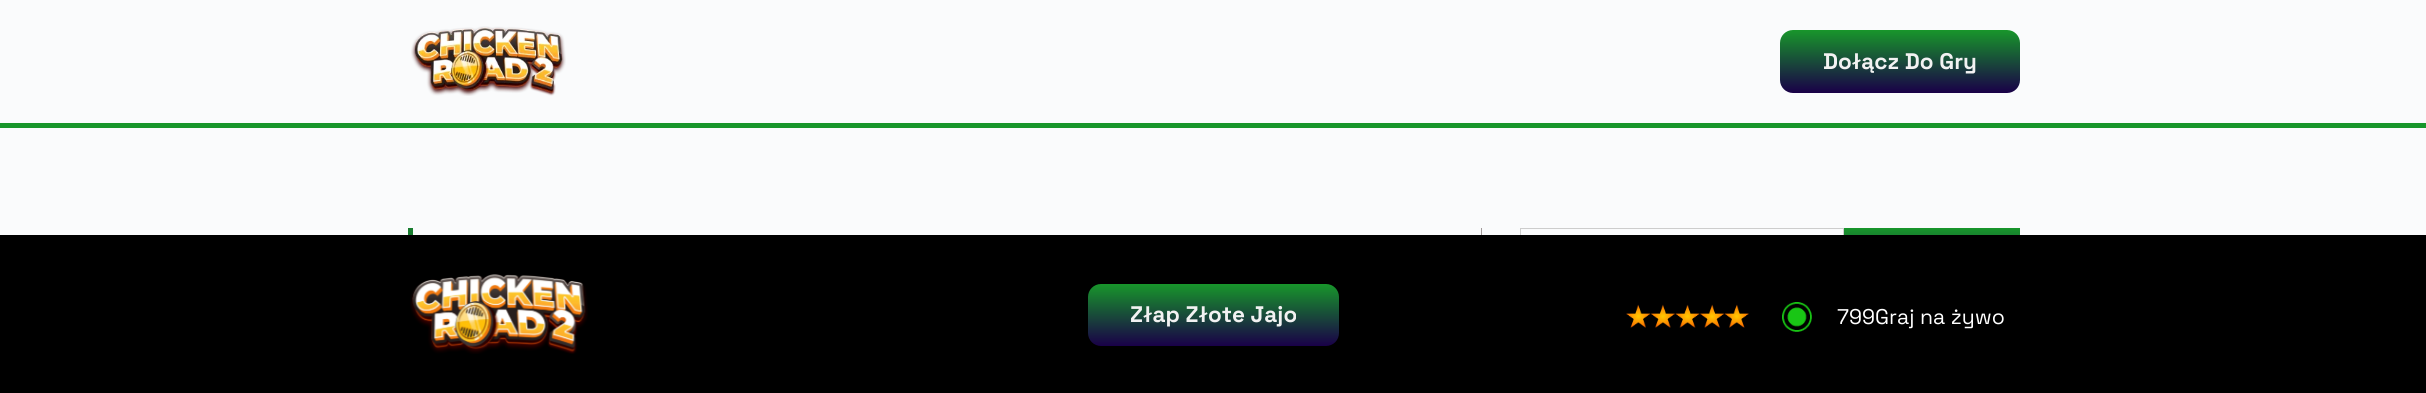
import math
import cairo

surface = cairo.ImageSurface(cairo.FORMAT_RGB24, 2426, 393)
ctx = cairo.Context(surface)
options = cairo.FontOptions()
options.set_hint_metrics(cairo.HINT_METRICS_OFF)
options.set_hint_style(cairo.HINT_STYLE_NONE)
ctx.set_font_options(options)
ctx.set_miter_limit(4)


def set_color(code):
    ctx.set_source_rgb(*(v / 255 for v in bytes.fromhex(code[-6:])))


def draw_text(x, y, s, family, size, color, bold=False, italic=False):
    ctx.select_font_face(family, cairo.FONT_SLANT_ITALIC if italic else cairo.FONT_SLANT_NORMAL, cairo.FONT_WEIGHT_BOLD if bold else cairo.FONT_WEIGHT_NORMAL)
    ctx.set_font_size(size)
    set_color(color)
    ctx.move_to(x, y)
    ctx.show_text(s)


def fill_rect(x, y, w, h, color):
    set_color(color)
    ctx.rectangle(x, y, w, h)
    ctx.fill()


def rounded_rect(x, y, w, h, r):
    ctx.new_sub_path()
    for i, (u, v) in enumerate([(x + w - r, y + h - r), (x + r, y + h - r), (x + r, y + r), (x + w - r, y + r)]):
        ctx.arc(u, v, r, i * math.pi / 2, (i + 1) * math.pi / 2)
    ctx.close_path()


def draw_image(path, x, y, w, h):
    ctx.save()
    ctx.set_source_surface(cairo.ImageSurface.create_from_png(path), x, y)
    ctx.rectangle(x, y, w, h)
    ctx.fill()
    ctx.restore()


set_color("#fafbfc")
ctx.paint()
fill_rect(0, 123, 2426, 5, "#18962b")
draw_image("assets/img1.png", 411, 26, 155, 70)
gradient = cairo.LinearGradient(1900, 30, 1900, 93)
gradient.add_color_stop_rgba(0, 0.094, 0.588, 0.169, 1)
gradient.add_color_stop_rgba(1, 0.098, 0, 0.282, 1)
ctx.set_source(gradient)
rounded_rect(1780, 30, 240, 63, 13)
ctx.fill()
draw_text(1823, 69, "Dołącz Do Gry", "Space Grotesk", 22.5, "#f2f2f2", bold=True)
fill_rect(1481, 228, 1, 7, "#a19a9a")
fill_rect(408, 228, 5, 7, "#187d2f")
ctx.rectangle(1520.5, 228.5, 323, 60)
set_color("#cdcdcd")
ctx.set_line_width(1)
ctx.stroke()
gradient = cairo.LinearGradient(1932, 228, 1932, 289)
gradient.add_color_stop_rgba(0, 0.094, 0.588, 0.169, 1)
gradient.add_color_stop_rgba(1, 0.098, 0, 0.282, 1)
ctx.set_source(gradient)
ctx.rectangle(1844, 228, 176, 7)
ctx.fill()
fill_rect(0, 235, 2426, 158, "#000000")
draw_image("assets/img2.png", 410, 274, 178, 80)
gradient = cairo.LinearGradient(1213, 284, 1213, 346)
gradient.add_color_stop_rgba(0, 0.094, 0.588, 0.169, 1)
gradient.add_color_stop_rgba(1, 0.098, 0, 0.282, 1)
ctx.set_source(gradient)
rounded_rect(1088, 284, 251, 62, 13)
ctx.fill()
draw_text(1130, 322, "Złap Złote Jajo", "Space Grotesk", 22.5, "#f2f2f2", bold=True)
draw_image("assets/img3.png", 1626, 304, 123, 24)
draw_image("assets/img4.png", 1782, 302, 30, 30)
draw_text(1837, 324, "799Graj na żywo", "Space Grotesk", 21.25, "#ffffff")
surface.write_to_png("output.png")
